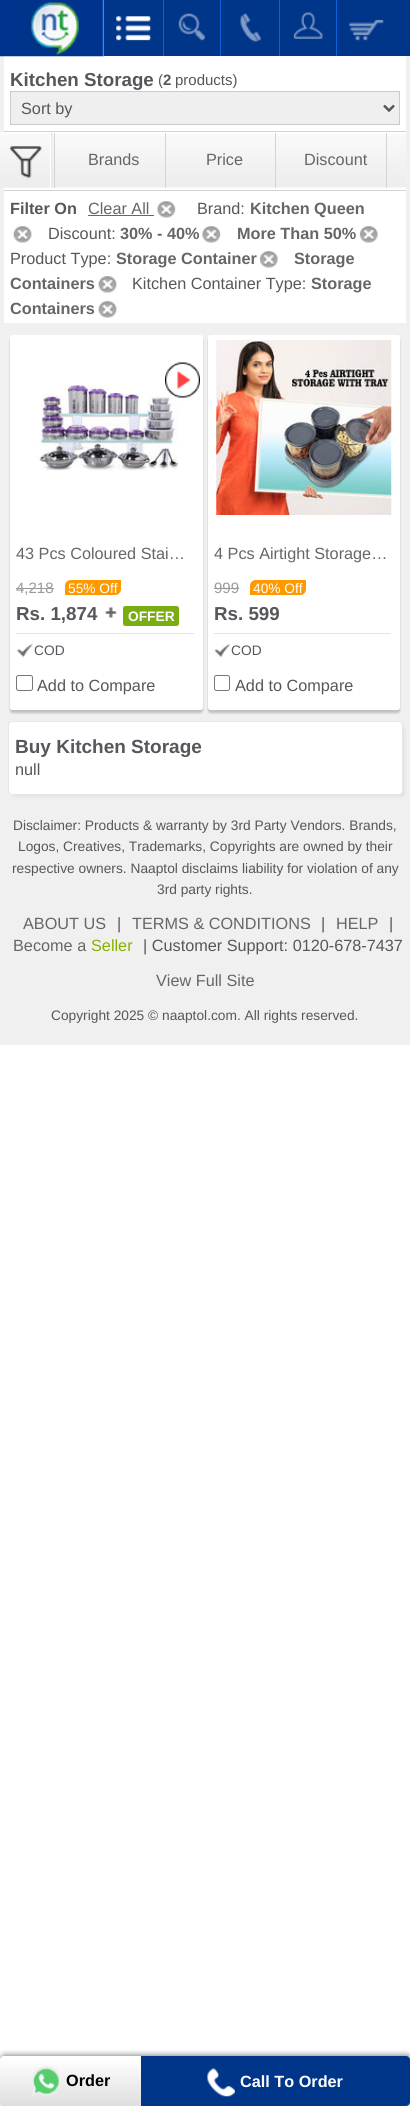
import math
import cairo

surface = cairo.ImageSurface(cairo.FORMAT_RGB24, 410, 2106)
ctx = cairo.Context(surface)
options = cairo.FontOptions()
options.set_hint_metrics(cairo.HINT_METRICS_OFF)
options.set_hint_style(cairo.HINT_STYLE_NONE)
ctx.set_font_options(options)
ctx.set_miter_limit(4)


def set_color(code):
    ctx.set_source_rgb(*(v / 255 for v in bytes.fromhex(code[-6:])))


def draw_text(x, y, s, family, size, color, bold=False, italic=False):
    ctx.select_font_face(family, cairo.FONT_SLANT_ITALIC if italic else cairo.FONT_SLANT_NORMAL, cairo.FONT_WEIGHT_BOLD if bold else cairo.FONT_WEIGHT_NORMAL)
    ctx.set_font_size(size)
    set_color(color)
    ctx.move_to(x, y)
    ctx.show_text(s)


def fill_rect(x, y, w, h, color):
    set_color(color)
    ctx.rectangle(x, y, w, h)
    ctx.fill()


def rounded_rect(x, y, w, h, r):
    ctx.new_sub_path()
    for i, (u, v) in enumerate([(x + w - r, y + h - r), (x + r, y + h - r), (x + r, y + r), (x + w - r, y + r)]):
        ctx.arc(u, v, r, i * math.pi / 2, (i + 1) * math.pi / 2)
    ctx.close_path()


def draw_shadow(x, y, w, h, r, blur, alpha):
    ctx.push_group_with_content(cairo.CONTENT_ALPHA)
    ctx.set_operator(cairo.OPERATOR_SOURCE)
    for i in range(15, -16, -2):
        e = blur * i / 6
        if min(w, h) + 2 * e > 0:
            ctx.set_source_rgba(0, 0, 0, alpha * math.erfc((i - 1) / 8.5) / 2)
            rounded_rect(x - e, y - e, w + 2 * e, h + 2 * e, max(0, min(r + e + blur * .6, min(w, h) / 2 + e)))
            ctx.fill()
    ctx.mask(ctx.pop_group())


def draw_image(path, x, y, w, h):
    ctx.save()
    ctx.set_source_surface(cairo.ImageSurface.create_from_png(path), x, y)
    ctx.rectangle(x, y, w, h)
    ctx.fill()
    ctx.restore()


set_color("#ffffff")
ctx.paint()
fill_rect(0, 56, 410, 989, "#f0f0f0")
fill_rect(4, 56, 402, 267, "#ffffff")
draw_image("assets/img1.png", 0, 0, 104, 57)
fill_rect(104, 0, 306, 56, "#00368a")
draw_image("assets/img2.png", 116, 16, 35, 25)
fill_rect(163, 0, 1, 56, "#0c60db")
draw_image("assets/img3.png", 178, 13, 27, 28)
fill_rect(220, 0, 1, 56, "#0c60db")
draw_image("assets/img4.png", 240, 13, 21, 29)
fill_rect(279, 0, 1, 56, "#0c60db")
draw_image("assets/img5.png", 293, 12, 30, 27)
fill_rect(336, 0, 1, 56, "#0c60db")
draw_image("assets/img6.png", 349, 19, 35, 22)
draw_text(10, 86, "Kitchen Storage", "Liberation Sans", 18.75, "#56565c", bold=True)
draw_text(158, 85, "(", "Liberation Sans", 15, "#56565c")
draw_text(163, 85, "2", "Liberation Sans", 15, "#56565c", bold=True)
draw_text(175, 85, "products)", "Liberation Sans", 15, "#56565c")
set_color("#efefef")
ctx.rectangle(10.5, 91.5, 389, 33)
ctx.fill_preserve()
set_color("#cbcbcb")
ctx.set_line_width(1)
ctx.stroke()
ctx.new_path()
ctx.move_to(384, 105.5)
ctx.line_to(389, 110.5)
ctx.line_to(394, 105.5)
set_color("#56565c")
ctx.set_line_width(2.5)
ctx.stroke()
draw_text(21, 114, "Sort by", "Liberation Sans", 16.25, "#56565c")
draw_image("assets/img7.png", 4, 134, 402, 54)
fill_rect(4, 131, 402, 1, "#d3d3d3")
fill_rect(4, 190, 402, 1, "#d3d3d3")
draw_image("assets/img8.png", 0, 132, 53, 56)
fill_rect(54, 133, 1, 55, "#d3d3d3")
draw_text(88, 165, "Brands", "Liberation Sans", 16.25, "#666666")
fill_rect(165, 133, 1, 55, "#d3d3d3")
draw_text(206, 165, "Price", "Liberation Sans", 16.25, "#666666")
fill_rect(275, 133, 1, 55, "#d3d3d3")
draw_text(304, 165, "Discount", "Liberation Sans", 16.25, "#666666")
fill_rect(386, 133, 1, 55, "#d3d3d3")
draw_text(10, 214, "Filter On", "Liberation Sans", 16.25, "#56565c", bold=True)
draw_text(88, 214, "Clear All", "Liberation Sans", 16.25, "#666666")
fill_rect(88, 215, 66, 1, "#666666")
draw_image("assets/img9.png", 157, 201, 19, 17)
draw_text(197, 214, "Brand:", "Liberation Sans", 16.25, "#56565c")
draw_text(250, 214, "Kitchen Queen", "Liberation Sans", 16.25, "#666666", bold=True)
draw_image("assets/img10.png", 13, 226, 19, 17)
draw_text(48, 239, "Discount:", "Liberation Sans", 16.25, "#56565c")
draw_text(120, 239, "30% - 40%", "Liberation Sans", 16.25, "#666666", bold=True)
draw_image("assets/img11.png", 202, 226, 19, 17)
draw_text(237, 239, "More Than 50%", "Liberation Sans", 16.25, "#666666", bold=True)
draw_image("assets/img12.png", 359, 226, 19, 17)
draw_text(294, 264, "Storage", "Liberation Sans", 16.25, "#666666", bold=True)
draw_text(10, 289, "Containers", "Liberation Sans", 16.25, "#666666", bold=True)
draw_image("assets/img10.png", 98, 276, 19, 17)
draw_text(10, 264, "Product Type:", "Liberation Sans", 16.25, "#56565c")
draw_text(116, 264, "Storage Container", "Liberation Sans", 16.25, "#666666", bold=True)
draw_image("assets/img13.png", 259, 251, 19, 17)
draw_text(311, 289, "Storage", "Liberation Sans", 16.25, "#666666", bold=True)
draw_text(10, 314, "Containers", "Liberation Sans", 16.25, "#666666", bold=True)
draw_image("assets/img10.png", 98, 301, 19, 17)
draw_text(132, 289, "Kitchen Container Type:", "Liberation Sans", 16.25, "#56565c")
set_color("#000000")
draw_shadow(10, 338, 193, 375, 2.5, 1, 0.2)
set_color("#ffffff")
rounded_rect(10, 335, 193, 375, 2.5)
ctx.fill()
draw_image("assets/img15.png", 36, 385, 143, 86)
draw_image("assets/img14.png", 165, 362, 35, 36)
draw_text(16, 559, "43 Pcs Coloured Stai…", "Liberation Sans", 16.25, "#666666")
draw_text(16, 593, "4,218", "Liberation Sans", 15, "#999999")
fill_rect(16, 588, 38, 1, "#999999")
set_color("#ff9900")
ctx.new_path()
ctx.move_to(71, 580)
ctx.line_to(121, 580)
ctx.line_to(121, 589)
ctx.curve_to(121, 592.5, 118.5, 595, 115, 595)
ctx.line_to(65, 595)
ctx.line_to(65, 586)
ctx.curve_to(65, 582.5, 67.5, 580, 71, 580)
ctx.close_path()
ctx.fill()
draw_text(68, 593, "55% Off", "Liberation Sans", 13.75, "#ffffff")
draw_text(16, 620, "Rs. 1,874", "Liberation Sans", 18.75, "#56565c", bold=True)
draw_image("assets/img16.png", 105, 607, 12, 11)
set_color("#7aad11")
rounded_rect(123, 606, 56, 20, 2.5)
ctx.fill()
draw_text(128, 621, "OFFER", "Liberation Sans", 13.75, "#ffffff", bold=True)
fill_rect(16, 633, 178, 1, "#e4e4e4")
draw_image("assets/img17.png", 17, 643, 16, 15)
draw_text(34, 655, "COD", "Liberation Sans", 13.75, "#56565c")
rounded_rect(16.5, 675.5, 16, 15, 2)
set_color("#767676")
ctx.set_line_width(1)
ctx.stroke()
draw_text(37, 691, "Add to Compare", "Liberation Sans", 16.25, "#56565c")
set_color("#000000")
draw_shadow(208, 338, 192, 375, 2.5, 1, 0.2)
set_color("#ffffff")
rounded_rect(208, 335, 192, 375, 2.5)
ctx.fill()
draw_image("assets/img18.png", 216, 340, 176, 175)
draw_text(214, 559, "4 Pcs Airtight Storage…", "Liberation Sans", 16.25, "#666666")
draw_text(214, 593, "999", "Liberation Sans", 15, "#999999")
fill_rect(214, 588, 25, 1, "#999999")
set_color("#ff9900")
ctx.new_path()
ctx.move_to(256, 580)
ctx.line_to(306, 580)
ctx.line_to(306, 589)
ctx.curve_to(306, 592.5, 303.5, 595, 300, 595)
ctx.line_to(250, 595)
ctx.line_to(250, 586)
ctx.curve_to(250, 582.5, 252.5, 580, 256, 580)
ctx.close_path()
ctx.fill()
draw_text(253, 593, "40% Off", "Liberation Sans", 13.75, "#ffffff")
draw_text(214, 620, "Rs. 599", "Liberation Sans", 18.75, "#56565c", bold=True)
fill_rect(214, 633, 177, 1, "#e4e4e4")
draw_image("assets/img19.png", 214, 643, 16, 15)
draw_text(231, 655, "COD", "Liberation Sans", 13.75, "#56565c")
rounded_rect(214.5, 675.5, 15, 15, 2)
set_color("#767676")
ctx.stroke()
draw_text(235, 691, "Add to Compare", "Liberation Sans", 16.25, "#56565c")
set_color("#d3d3d3")
draw_shadow(15, 729, 388, 66, 0, 2.5, 1)
set_color("#ffffff")
rounded_rect(8.5, 721.5, 394, 73, 3.5)
ctx.fill_preserve()
set_color("#e7e7e7")
ctx.stroke()
draw_text(15, 753, "Buy Kitchen Storage", "Liberation Sans", 19, "#56565c", bold=True)
draw_text(15, 775, "null", "Liberation Sans", 16.25, "#56565c")
draw_text(13, 830, "Disclaimer: Products & warranty by 3rd Party Vendors. Brands,", "Liberation Sans", 13.75, "#56565c")
draw_text(18, 851, "Logos, Creatives, Trademarks, Copyrights are owned by their", "Liberation Sans", 13.75, "#56565c")
draw_text(12, 873, "respective owners. Naaptol disclaims liability for violation of any", "Liberation Sans", 13.75, "#56565c")
draw_text(157, 894, "3rd party rights.", "Liberation Sans", 13.75, "#56565c")
draw_text(23, 929, "ABOUT US", "Liberation Sans", 16.25, "#666666")
draw_text(117, 929, "|", "Liberation Sans", 16.25, "#56565c")
draw_text(132, 929, "TERMS & CONDITIONS", "Liberation Sans", 16.25, "#666666")
draw_text(321, 929, "|", "Liberation Sans", 16.25, "#56565c")
draw_text(336, 929, "HELP", "Liberation Sans", 16.25, "#666666")
draw_text(389, 929, "|", "Liberation Sans", 16.25, "#56565c")
draw_text(13, 951, "Become a", "Liberation Sans", 16.25, "#666666")
draw_text(91, 951, "Seller", "Liberation Sans", 16.25, "#86b200")
draw_text(143, 951, "| Customer Support: 0120-678-7437", "Liberation Sans", 16.25, "#56565c")
draw_text(156, 986, "View Full Site", "Liberation Sans", 16.25, "#666666")
draw_text(51, 1020, "Copyright 2025 © naaptol.com. All rights reserved.", "Liberation Sans", 13.75, "#56565c")
set_color("#808080")
draw_shadow(1, 2055, 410, 50, 4, 3, 1)
gradient = cairo.LinearGradient(71, 2056, 71, 2106)
gradient.add_color_stop_rgba(0.05, 1, 1, 1, 1)
gradient.add_color_stop_rgba(1, 0.871, 0.871, 0.871, 1)
ctx.set_source(gradient)
ctx.new_path()
ctx.move_to(4, 2056)
ctx.line_to(141, 2056)
ctx.line_to(141, 2106)
ctx.line_to(4, 2106)
ctx.curve_to(2, 2106, 0, 2104, 0, 2102)
ctx.line_to(0, 2060)
ctx.curve_to(0, 2058, 2, 2056, 4, 2056)
ctx.close_path()
ctx.fill()
draw_image("assets/img20.png", 32, 2066, 28, 30)
draw_text(66, 2086, "Order", "Liberation Sans", 16.25, "#000000", bold=True)
set_color("#00368a")
ctx.new_path()
ctx.move_to(141, 2056)
ctx.line_to(406, 2056)
ctx.curve_to(408, 2056, 410, 2058, 410, 2060)
ctx.line_to(410, 2102)
ctx.curve_to(410, 2104, 408, 2106, 406, 2106)
ctx.line_to(141, 2106)
ctx.close_path()
ctx.fill()
draw_image("assets/img21.png", 207, 2068, 28, 29)
draw_text(240, 2087, "Call To Order", "Liberation Sans", 16.25, "#ffffff", bold=True)
surface.write_to_png("output.png")
